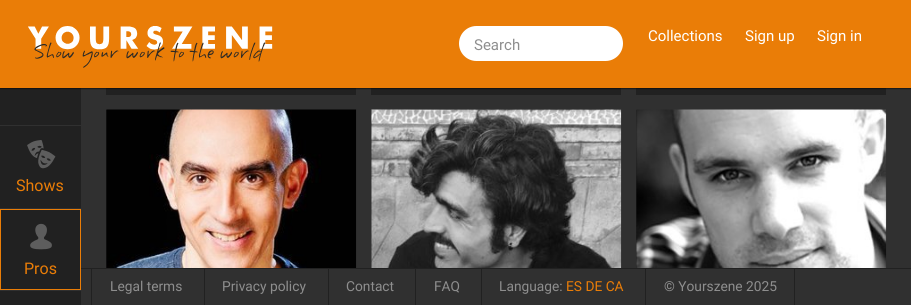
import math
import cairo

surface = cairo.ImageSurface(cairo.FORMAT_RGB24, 911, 305)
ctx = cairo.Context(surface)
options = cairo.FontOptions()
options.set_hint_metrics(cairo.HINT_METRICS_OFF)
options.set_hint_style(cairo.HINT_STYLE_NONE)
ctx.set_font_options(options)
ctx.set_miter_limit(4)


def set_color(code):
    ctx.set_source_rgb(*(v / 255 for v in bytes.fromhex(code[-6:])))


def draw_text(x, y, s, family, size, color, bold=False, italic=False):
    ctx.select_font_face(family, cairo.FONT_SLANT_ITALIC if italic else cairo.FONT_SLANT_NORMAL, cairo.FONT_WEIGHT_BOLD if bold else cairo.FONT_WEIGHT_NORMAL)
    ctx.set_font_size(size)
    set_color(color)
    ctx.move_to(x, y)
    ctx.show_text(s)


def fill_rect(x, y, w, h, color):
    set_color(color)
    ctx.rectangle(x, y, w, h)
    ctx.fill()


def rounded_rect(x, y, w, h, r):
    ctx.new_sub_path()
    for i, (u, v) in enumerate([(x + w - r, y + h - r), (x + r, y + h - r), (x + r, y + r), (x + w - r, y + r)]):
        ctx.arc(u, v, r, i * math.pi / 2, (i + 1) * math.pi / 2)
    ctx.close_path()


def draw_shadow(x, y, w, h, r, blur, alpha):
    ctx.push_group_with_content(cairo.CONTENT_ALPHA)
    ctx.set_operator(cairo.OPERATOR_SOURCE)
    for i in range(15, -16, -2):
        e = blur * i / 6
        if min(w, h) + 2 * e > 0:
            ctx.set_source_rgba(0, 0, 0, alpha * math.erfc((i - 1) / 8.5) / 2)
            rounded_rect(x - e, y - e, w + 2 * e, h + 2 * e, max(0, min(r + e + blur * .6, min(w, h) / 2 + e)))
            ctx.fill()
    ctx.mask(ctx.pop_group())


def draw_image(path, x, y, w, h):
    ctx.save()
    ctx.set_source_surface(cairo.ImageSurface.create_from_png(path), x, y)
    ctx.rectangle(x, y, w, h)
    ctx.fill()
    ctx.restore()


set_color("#303030")
ctx.paint()
fill_rect(0, 88, 81, 217, "#212121")
fill_rect(106, 88, 250, 7, "#212121")
fill_rect(371, 88, 250, 7, "#212121")
fill_rect(636, 88, 250, 7, "#212121")
set_color("#000000")
draw_shadow(0, 1, 911, 88, 0, 0.5, 0.5)
fill_rect(0, 0, 911, 88, "#ea7d07")
draw_image("assets/img1.png", 28, 26, 245, 42)
set_color("#ffffff")
rounded_rect(459, 26, 164, 35, 17.5)
ctx.fill()
draw_text(474, 50, "Search", "Roboto", 15, "#8e8e8e")
draw_text(648, 41, "Collections", "Roboto", 15, "#ffffff")
draw_text(745, 41, "Sign up", "Roboto", 15, "#ffffff")
draw_text(817, 41, "Sign in", "Roboto", 15, "#ffffff")
fill_rect(0, 125, 81, 1, "#303030")
draw_image("assets/img2.png", 27, 140, 29, 29)
draw_text(16, 191, "Shows", "Roboto", 16, "#ea7d07")
fill_rect(0, 208, 81, 1, "#303030")
ctx.rectangle(0.5, 209.5, 80, 80)
set_color("#ea7d07")
ctx.set_line_width(1)
ctx.stroke()
draw_image("assets/img3.png", 30, 223, 22, 27)
draw_text(24, 274, "Pros", "Roboto", 16, "#ea7d07")
fill_rect(0, 290, 81, 1, "#303030")
fill_rect(106, 110, 1, 158, "#212121")
draw_image("assets/img4.png", 106, 109, 251, 159)
fill_rect(371, 110, 1, 158, "#212121")
draw_image("assets/img5.png", 371, 109, 251, 159)
fill_rect(636, 110, 1, 158, "#212121")
draw_image("assets/img6.png", 636, 109, 251, 159)
fill_rect(81, 268, 830, 1, "#212121")
fill_rect(91, 269, 1, 36, "#212121")
draw_text(110, 291, "Legal terms", "Roboto", 13.75, "#8e8e8e")
fill_rect(204, 269, 1, 36, "#212121")
draw_text(222, 291, "Privacy policy", "Roboto", 13.75, "#8e8e8e")
fill_rect(328, 269, 1, 36, "#212121")
draw_text(346, 291, "Contact", "Roboto", 13.75, "#8e8e8e")
fill_rect(415, 269, 1, 36, "#212121")
draw_text(434, 291, "FAQ", "Roboto", 13.75, "#8e8e8e")
fill_rect(481, 269, 1, 36, "#212121")
draw_text(499, 291, "Language:", "Roboto", 13.75, "#8e8e8e")
draw_text(566, 291, "ES DE CA", "Roboto", 13.75, "#ea7d07")
fill_rect(794, 269, 1, 36, "#212121")
fill_rect(645, 269, 1, 36, "#212121")
draw_text(664, 291, "© Yourszene 2025", "Roboto", 13.75, "#8e8e8e")
surface.write_to_png("output.png")
